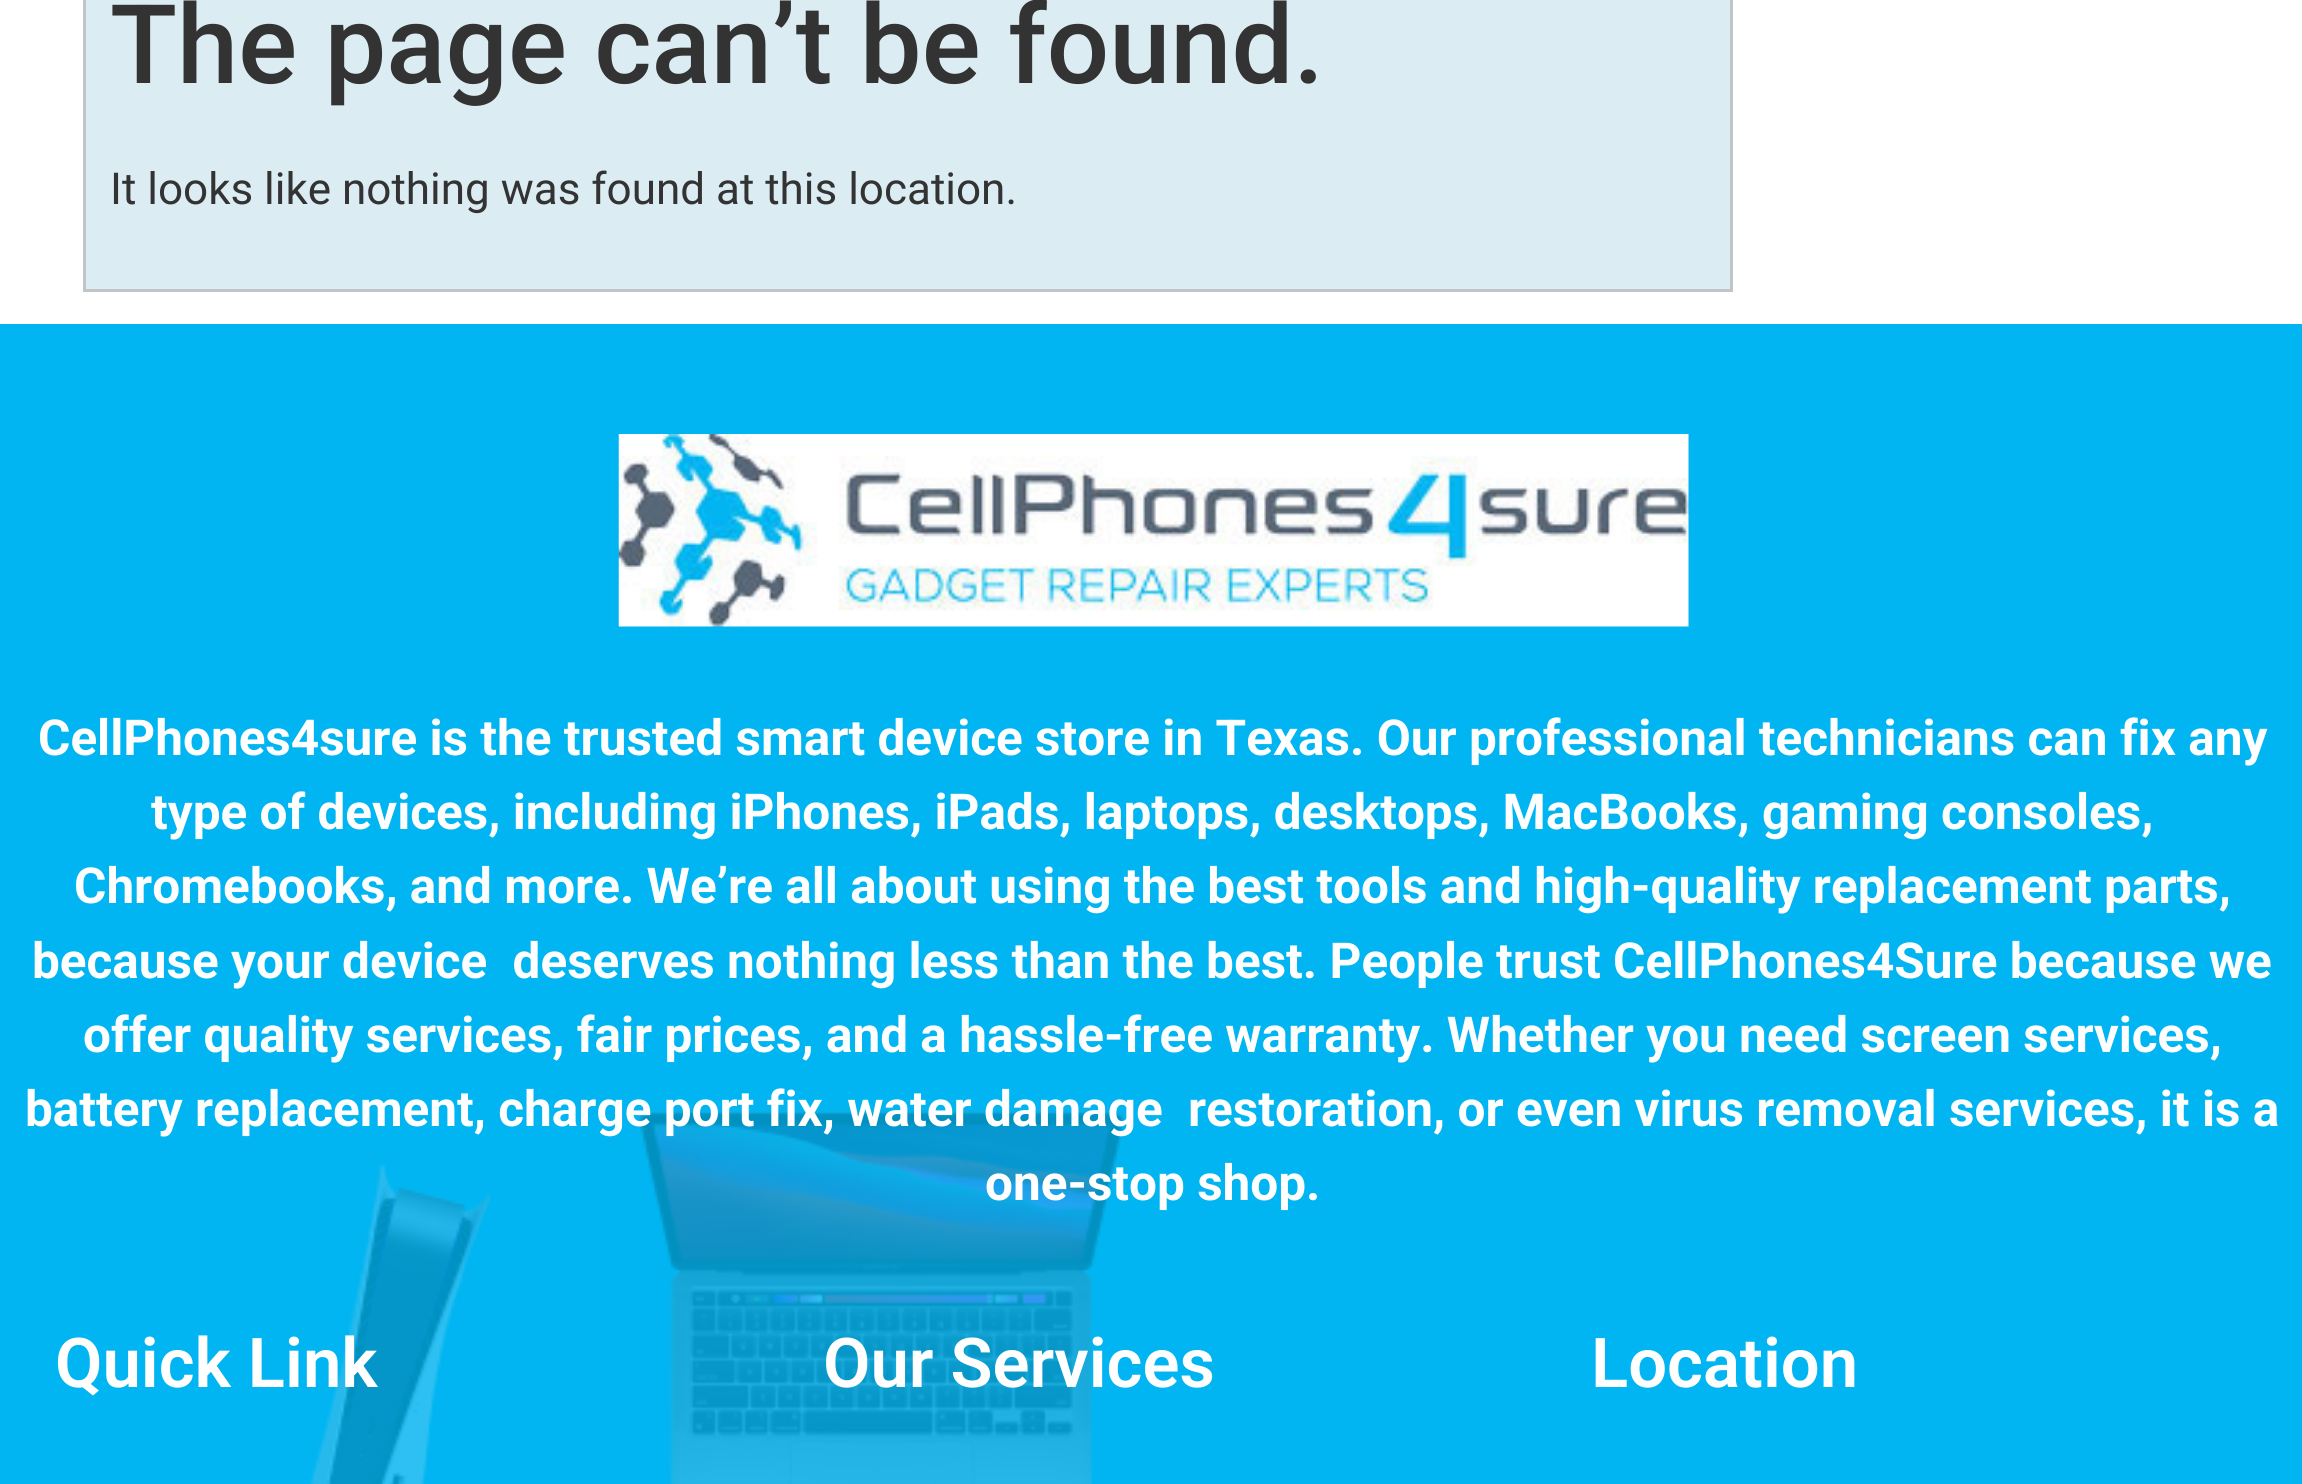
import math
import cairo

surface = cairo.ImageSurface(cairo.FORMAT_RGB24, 2302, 1484)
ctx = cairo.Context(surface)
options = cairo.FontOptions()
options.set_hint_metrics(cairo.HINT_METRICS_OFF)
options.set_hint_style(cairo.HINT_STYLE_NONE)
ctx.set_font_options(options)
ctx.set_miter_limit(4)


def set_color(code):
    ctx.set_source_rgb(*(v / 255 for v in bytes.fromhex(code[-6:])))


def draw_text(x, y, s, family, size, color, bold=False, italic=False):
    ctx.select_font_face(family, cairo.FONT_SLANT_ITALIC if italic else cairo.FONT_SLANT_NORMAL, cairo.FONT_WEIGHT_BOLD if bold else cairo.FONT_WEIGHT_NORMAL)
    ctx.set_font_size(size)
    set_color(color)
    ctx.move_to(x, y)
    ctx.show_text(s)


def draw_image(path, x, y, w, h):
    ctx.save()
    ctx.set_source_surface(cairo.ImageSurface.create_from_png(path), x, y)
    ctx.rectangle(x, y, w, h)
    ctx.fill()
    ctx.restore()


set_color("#ffffff")
ctx.paint()
set_color("#dcecf3")
ctx.rectangle(84.5, -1.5, 1647, 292)
ctx.fill_preserve()
set_color("#c3c4c5")
ctx.set_line_width(3)
ctx.stroke()
draw_text(110, 83, "The page can’t be found.", "Roboto Medium", 110, "#333333")
draw_text(110, 204, "It looks like nothing was found at this location.", "Roboto", 44, "#333333")
draw_image("assets/img1.png", 0, 324, 2302, 1160)
draw_image("assets/img2.png", 618, 434, 1071, 193)
draw_text(38, 755, "CellPhones4sure is the trusted smart device store in Texas. Our professional technicians can fix any", "Roboto", 49.5, "#ffffff", bold=True)
draw_text(151, 829, "type of devices, including iPhones, iPads, laptops, desktops, MacBooks, gaming consoles,", "Roboto", 49.5, "#ffffff", bold=True)
draw_text(74, 903, "Chromebooks, and more. We’re all about using the best tools and high-quality replacement parts,", "Roboto", 49.5, "#ffffff", bold=True)
draw_text(32, 978, "because your device deserves nothing less than the best. People trust CellPhones4Sure because we", "Roboto", 49.5, "#ffffff", bold=True)
draw_text(83, 1052, "offer quality services, fair prices, and a hassle-free warranty. Whether you need screen services,", "Roboto", 49.5, "#ffffff", bold=True)
draw_text(25, 1126, "battery replacement, charge port fix, water damage restoration, or even virus removal services, it is a", "Roboto", 49.5, "#ffffff", bold=True)
draw_text(985, 1200, "one-stop shop.", "Roboto", 49.5, "#ffffff", bold=True)
draw_text(55, 1387, "Quick Link", "Roboto SemiBold", 68.75, "#ffffff")
draw_text(823, 1387, "Our Services", "Roboto SemiBold", 68.75, "#ffffff")
draw_text(1591, 1387, "Location", "Roboto SemiBold", 68.75, "#ffffff")
surface.write_to_png("output.png")
